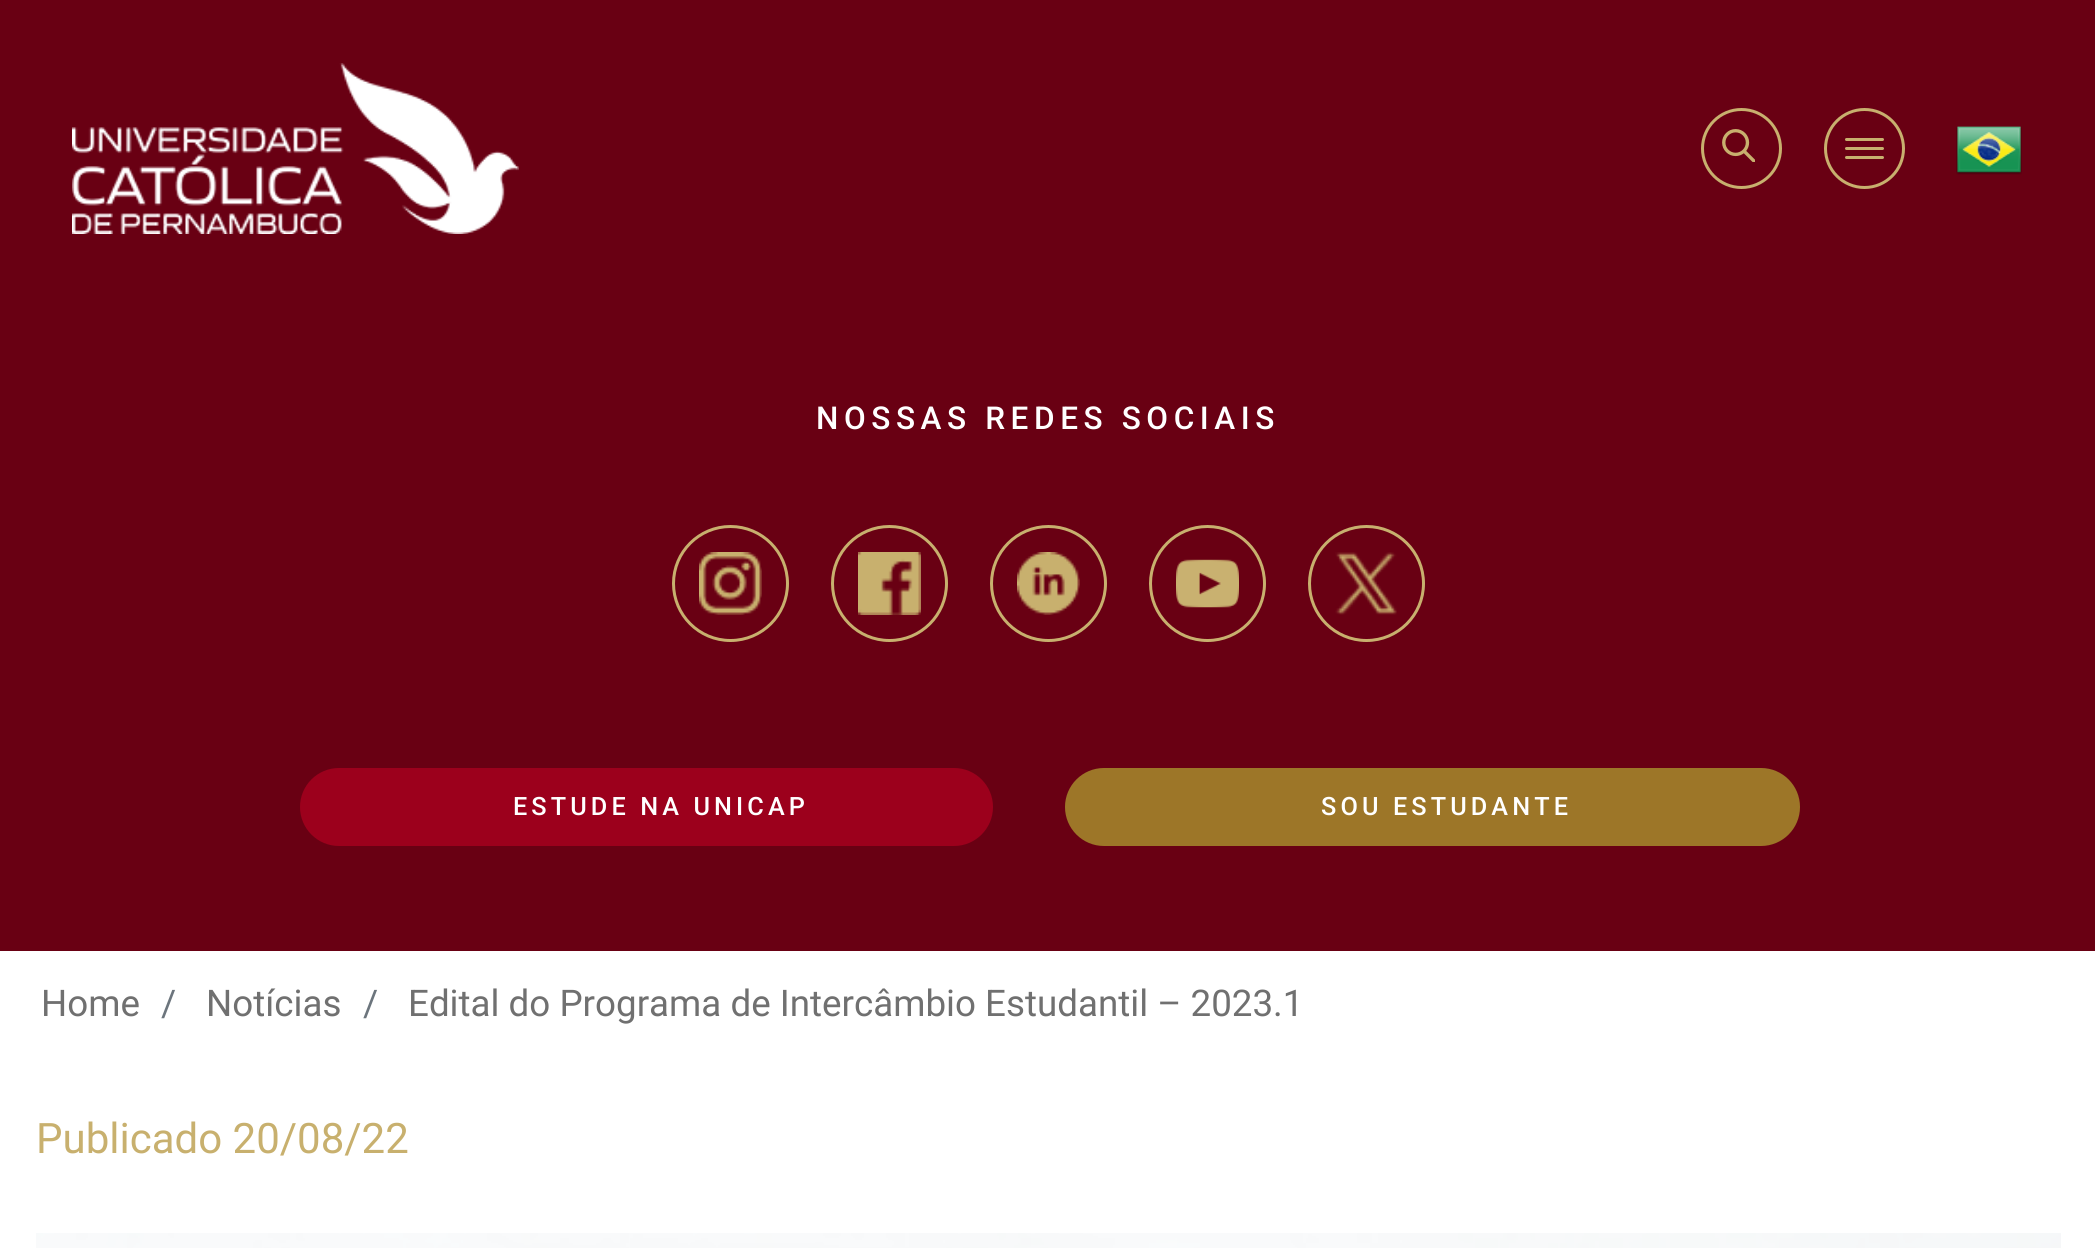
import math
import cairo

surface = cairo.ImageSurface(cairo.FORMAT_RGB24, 2095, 1248)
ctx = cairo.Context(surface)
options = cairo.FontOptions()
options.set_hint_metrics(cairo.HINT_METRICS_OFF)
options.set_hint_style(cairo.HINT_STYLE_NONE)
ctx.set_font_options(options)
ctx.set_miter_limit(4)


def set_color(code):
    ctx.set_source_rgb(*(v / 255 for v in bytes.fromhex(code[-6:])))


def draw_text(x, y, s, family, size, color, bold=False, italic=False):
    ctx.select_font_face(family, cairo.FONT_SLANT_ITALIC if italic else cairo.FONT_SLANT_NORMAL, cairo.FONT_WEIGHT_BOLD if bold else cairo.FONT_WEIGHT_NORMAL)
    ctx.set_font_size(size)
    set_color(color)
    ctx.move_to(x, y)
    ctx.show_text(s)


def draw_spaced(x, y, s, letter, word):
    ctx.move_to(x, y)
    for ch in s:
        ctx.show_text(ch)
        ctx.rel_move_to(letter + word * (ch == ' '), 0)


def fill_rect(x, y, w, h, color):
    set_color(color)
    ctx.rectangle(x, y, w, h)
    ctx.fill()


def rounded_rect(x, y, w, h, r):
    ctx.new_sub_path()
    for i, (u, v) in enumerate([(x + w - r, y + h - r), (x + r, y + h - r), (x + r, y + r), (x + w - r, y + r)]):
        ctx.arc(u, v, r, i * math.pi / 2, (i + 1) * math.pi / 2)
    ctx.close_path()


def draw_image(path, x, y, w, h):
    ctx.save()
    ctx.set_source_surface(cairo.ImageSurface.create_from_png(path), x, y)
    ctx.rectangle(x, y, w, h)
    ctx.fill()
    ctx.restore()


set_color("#ffffff")
ctx.paint()
fill_rect(0, 0, 2095, 951, "#690013")
draw_image("assets/img1.png", 72, 63, 447, 171)
ctx.arc(1741.5, 148.5, 39, 0, 2 * math.pi)
set_color("#c8b06e")
ctx.set_line_width(3)
ctx.stroke()
draw_image("assets/img2.png", 1722, 129, 33, 33)
ctx.arc(1864.5, 148.5, 39, 0, 2 * math.pi)
ctx.stroke()
rounded_rect(1845, 138, 39, 3, 1.5)
ctx.fill()
rounded_rect(1845, 147, 39, 3, 1.5)
ctx.fill()
rounded_rect(1845, 156, 39, 3, 1.5)
ctx.fill()
draw_image("assets/img3.png", 1956, 126, 66, 49)
ctx.select_font_face("Roboto Medium")
ctx.set_font_size(31.5)
set_color("#ffffff")
draw_spaced(816, 429, "NOSSAS REDES SOCIAIS", 5.6, 0)
ctx.new_path()
ctx.arc(730.5, 583.5, 57, 0, 2 * math.pi)
set_color("#c8b06e")
ctx.stroke()
draw_image("assets/img4.png", 699, 552, 63, 63)
ctx.arc(889.5, 583.5, 57, 0, 2 * math.pi)
ctx.stroke()
draw_image("assets/img5.png", 858, 552, 63, 63)
ctx.arc(1048.5, 583.5, 57, 0, 2 * math.pi)
ctx.stroke()
draw_image("assets/img6.png", 1017, 552, 63, 63)
ctx.arc(1207.5, 583.5, 57, 0, 2 * math.pi)
ctx.stroke()
draw_image("assets/img7.png", 1176, 559, 63, 49)
ctx.arc(1366.5, 583.5, 57, 0, 2 * math.pi)
ctx.stroke()
draw_image("assets/img8.png", 1335, 552, 62, 63)
set_color("#9c001c")
rounded_rect(300, 768, 693, 78, 39)
ctx.fill()
ctx.set_font_size(25.25)
set_color("#ffffff")
draw_spaced(513, 815, "ESTUDE NA UNICAP", 4.1, 0)
set_color("#9d7628")
rounded_rect(1065, 768, 735, 78, 39)
ctx.fill()
set_color("#ffffff")
draw_spaced(1321, 815, "SOU ESTUDANTE", 4.1, 0)
draw_text(41, 1016, "Home", "Roboto", 36.75, "#707070")
draw_text(161, 1016, "/", "Roboto", 36.75, "#6c757d")
draw_text(206, 1016, "Notícias", "Roboto", 36.75, "#707070")
draw_text(363, 1016, "/", "Roboto", 36.75, "#6c757d")
draw_text(408, 1016, "Edital do Programa de Intercâmbio Estudantil – 2023.1", "Roboto", 36.75, "#707070")
draw_text(36, 1153, "Publicado 20/08/22", "Roboto", 42, "#c8b06e")
draw_image("assets/img9.png", 36, 1233, 2025, 15)
surface.write_to_png("output.png")
